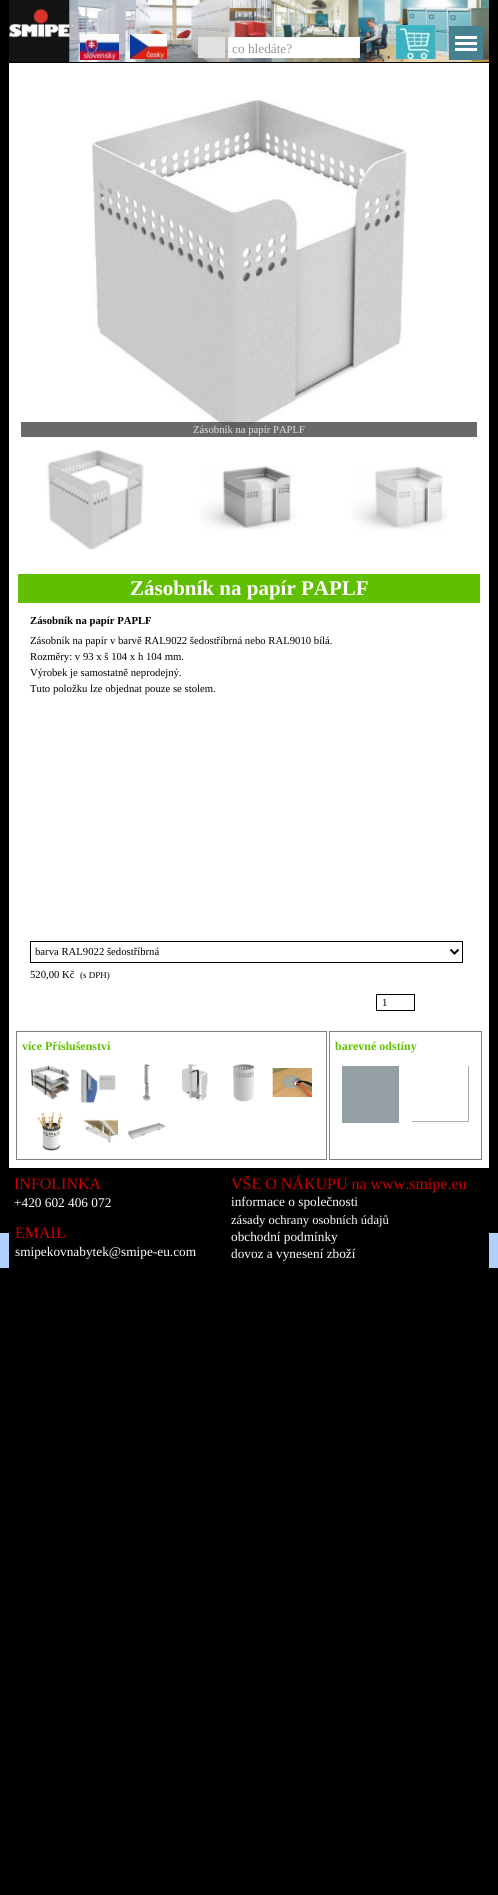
import math
import cairo

surface = cairo.ImageSurface(cairo.FORMAT_RGB24, 498, 1895)
ctx = cairo.Context(surface)
options = cairo.FontOptions()
options.set_hint_metrics(cairo.HINT_METRICS_OFF)
options.set_hint_style(cairo.HINT_STYLE_NONE)
ctx.set_font_options(options)
ctx.set_miter_limit(4)


def set_color(code):
    ctx.set_source_rgb(*(v / 255 for v in bytes.fromhex(code[-6:])))


def draw_text(x, y, s, family, size, color, bold=False, italic=False):
    ctx.select_font_face(family, cairo.FONT_SLANT_ITALIC if italic else cairo.FONT_SLANT_NORMAL, cairo.FONT_WEIGHT_BOLD if bold else cairo.FONT_WEIGHT_NORMAL)
    ctx.set_font_size(size)
    set_color(color)
    ctx.move_to(x, y)
    ctx.show_text(s)


def fill_rect(x, y, w, h, color):
    set_color(color)
    ctx.rectangle(x, y, w, h)
    ctx.fill()


def draw_image(path, x, y, w, h):
    ctx.save()
    ctx.set_source_surface(cairo.ImageSurface.create_from_png(path), x, y)
    ctx.rectangle(x, y, w, h)
    ctx.fill()
    ctx.restore()


set_color("#000000")
ctx.paint()
draw_image("assets/img1.png", 9, 0, 480, 62)
draw_image("assets/img2.png", 80, 34, 39, 26)
draw_image("assets/img3.png", 130, 34, 37, 25)
fill_rect(198, 37, 27, 21, "#e0e0e0")
fill_rect(229, 38, 130, 20, "#ffffff")
ctx.save()
ctx.rectangle(198, 37, 162, 21)
ctx.clip()
ctx.rectangle(228.5, 37.5, 131, 23)
set_color("#f3f3f3")
ctx.set_line_width(1)
ctx.stroke()
ctx.restore()
draw_text(232, 53, "co hledáte?", "Liberation Serif", 13.3, "#949494")
draw_image("assets/img4.png", 396, 25, 40, 34)
fill_rect(449, 26, 34, 34, "#45818e")
fill_rect(455, 36, 22, 3, "#ffffff")
fill_rect(455, 42, 22, 3, "#ffffff")
fill_rect(455, 48, 22, 3, "#ffffff")
fill_rect(9, 63, 480, 1105, "#ffffff")
draw_image("assets/img5.png", 92, 99, 316, 333)
ctx.set_source_rgba(0.267, 0.267, 0.267, 0.8)
ctx.rectangle(21, 422, 456, 15)
ctx.fill()
draw_text(193, 433, "Zásobník na papír PAPLF", "Liberation Serif", 10.7, "#e1e1e1")
draw_image("assets/img6.png", 47, 450, 97, 101)
draw_image("assets/img7.png", 199, 466, 98, 64)
draw_image("assets/img8.png", 351, 466, 97, 64)
fill_rect(18, 574, 462, 29, "#60bf00")
draw_text(130, 595, "Zásobník na papír PAPLF", "Liberation Serif", 21, "#ffffff", bold=True)
draw_text(30, 624, "Zásobník na papír PAPLF", "Liberation Serif", 10.7, "#000000", bold=True)
draw_text(30, 644, "Zásobník na papír v barvě RAL9022 šedostříbrná nebo RAL9010 bílá.", "Liberation Serif", 10.7, "#000000")
draw_text(30, 660, "Rozměry: v 93 x š 104 x h 104 mm.", "Liberation Serif", 10.7, "#000000")
draw_text(30, 676, "Výrobek je samostatně neprodejný.", "Liberation Serif", 10.7, "#000000")
draw_text(30, 692, "Tuto položku lze objednat pouze se stolem.", "Liberation Serif", 10.7, "#000000")
ctx.rectangle(30.5, 941.5, 432, 21)
ctx.set_line_width(1)
ctx.stroke()
ctx.new_path()
ctx.move_to(450.5, 949.5)
ctx.line_to(454.5, 953.5)
ctx.line_to(458.5, 949.5)
ctx.set_line_width(2)
ctx.stroke()
draw_text(35, 955, "barva RAL9022 šedostříbrná", "Liberation Serif", 10.7, "#000000")
draw_text(30, 978, "520,00 Kč", "Liberation Serif", 10.7, "#000000")
draw_text(80, 978, "(s DPH)", "Liberation Serif", 9, "#000000")
ctx.rectangle(376.5, 994.5, 38, 16)
ctx.set_line_width(1)
ctx.stroke()
draw_text(382, 1006, "1", "Liberation Serif", 10.7, "#000000")
ctx.rectangle(16.5, 1031.5, 310, 128)
set_color("#808080")
ctx.stroke()
draw_text(22, 1050, "více Příslušenství", "Liberation Serif", 12, "#60bf00", bold=True)
draw_image("assets/img9.png", 31, 1065, 39, 35)
draw_image("assets/img10.png", 80, 1069, 36, 34)
draw_image("assets/img11.png", 142, 1064, 9, 37)
draw_image("assets/img12.png", 181, 1064, 27, 37)
draw_image("assets/img13.png", 233, 1064, 22, 38)
draw_image("assets/img14.png", 272, 1068, 40, 29)
draw_image("assets/img15.png", 37, 1112, 26, 39)
draw_image("assets/img16.png", 83, 1119, 35, 24)
draw_image("assets/img17.png", 128, 1122, 38, 18)
ctx.rectangle(329.5, 1031.5, 152, 128)
set_color("#808080")
ctx.stroke()
draw_text(335, 1050, "barevné odstíny", "Liberation Serif", 12, "#60bf00", bold=True)
fill_rect(342, 1066, 57, 57, "#95a0a4")
draw_image("assets/img18.png", 412, 1066, 57, 57)
fill_rect(0, 1233, 498, 35, "#b0d1ff")
fill_rect(9, 1233, 480, 35, "#000000")
draw_text(14, 1189, "INFOLINKA", "Liberation Serif", 16, "#cc0000")
draw_text(231, 1189, "VŠE O NÁKUPU na www.smipe.eu", "Liberation Serif", 16, "#cc0000")
draw_text(14, 1207, "+420 602 406 072", "Liberation Serif", 13.3, "#ffffff")
draw_text(231, 1206, "informace o společnosti", "Liberation Serif", 13.3, "#ffffff")
draw_text(231, 1224, "zásady ochrany osobních údajů", "Liberation Serif", 12.6, "#ffffff")
draw_text(15, 1238, "EMAIL", "Liberation Serif", 16, "#cc0000")
draw_text(231, 1241, "obchodní podmínky", "Liberation Serif", 13.3, "#ffffff")
draw_text(15, 1256, "smipekovnabytek@smipe-eu.com", "Liberation Serif", 13.3, "#ffffff")
draw_text(231, 1258, "dovoz a vynesení zboží", "Liberation Serif", 13.3, "#ffffff")
surface.write_to_png("output.png")
